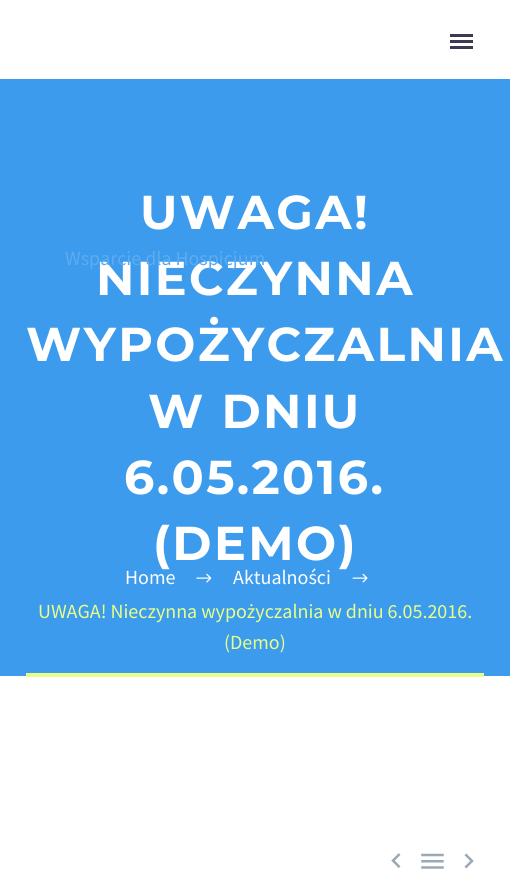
import math
import cairo

surface = cairo.ImageSurface(cairo.FORMAT_RGB24, 510, 880)
ctx = cairo.Context(surface)
options = cairo.FontOptions()
options.set_hint_metrics(cairo.HINT_METRICS_OFF)
options.set_hint_style(cairo.HINT_STYLE_NONE)
ctx.set_font_options(options)
ctx.set_miter_limit(4)


def set_color(code):
    ctx.set_source_rgb(*(v / 255 for v in bytes.fromhex(code[-6:])))


def draw_text(x, y, s, family, size, color, bold=False, italic=False):
    ctx.select_font_face(family, cairo.FONT_SLANT_ITALIC if italic else cairo.FONT_SLANT_NORMAL, cairo.FONT_WEIGHT_BOLD if bold else cairo.FONT_WEIGHT_NORMAL)
    ctx.set_font_size(size)
    set_color(color)
    ctx.move_to(x, y)
    ctx.show_text(s)


def draw_spaced(x, y, s, letter, word):
    ctx.move_to(x, y)
    for ch in s:
        ctx.show_text(ch)
        ctx.rel_move_to(letter + word * (ch == ' '), 0)


def fill_rect(x, y, w, h, color):
    set_color(color)
    ctx.rectangle(x, y, w, h)
    ctx.fill()


def draw_image(path, x, y, w, h):
    ctx.save()
    ctx.set_source_surface(cairo.ImageSurface.create_from_png(path), x, y)
    ctx.rectangle(x, y, w, h)
    ctx.fill()
    ctx.restore()


set_color("#ffffff")
ctx.paint()
fill_rect(0, 79, 510, 597, "#3c9bed")
ctx.select_font_face("Montserrat", cairo.FONT_SLANT_NORMAL, cairo.FONT_WEIGHT_BOLD)
ctx.set_font_size(47.5)
set_color("#ffffff")
draw_spaced(140, 229, "UWAGA!", 2.4, 0)
draw_spaced(96, 295, "NIECZYNNA", 2.4, 0)
draw_spaced(26, 361, "WYPOŻYCZALNIA", 2.4, 0)
draw_spaced(148, 428, "W DNIU", 2.4, 0)
draw_spaced(124, 494, "6.05.2016.", 2.4, 0)
draw_spaced(153, 560, "(DEMO)", 2.4, 0)
draw_text(125, 584, "Home", "Source Sans Pro", 20, "#ffffff")
draw_image("assets/img1.png", 196, 573, 16, 10)
draw_text(233, 584, "Aktualności", "Source Sans Pro", 20, "#ffffff")
draw_image("assets/img2.png", 352, 573, 16, 10)
fill_rect(26, 673, 458, 4, "#e7ff89")
draw_text(38, 618, "UWAGA! Nieczynna wypożyczalnia w dniu 6.05.2016.", "Source Sans Pro", 20, "#e7ff89")
draw_text(224, 649, "(Demo)", "Source Sans Pro", 20, "#e7ff89")
draw_image("assets/img3.png", 391, 853, 10, 15)
draw_image("assets/img4.png", 421, 853, 23, 16)
draw_image("assets/img5.png", 464, 853, 10, 16)
fill_rect(450, 34, 23, 3, "#3c3950")
fill_rect(450, 40, 23, 3, "#3c3950")
fill_rect(450, 46, 23, 3, "#3c3950")
draw_text(65, 265, "Wsparcie dla Hospicjum", "Source Sans Pro", 20, "#5dacf0")
surface.write_to_png("output.png")
